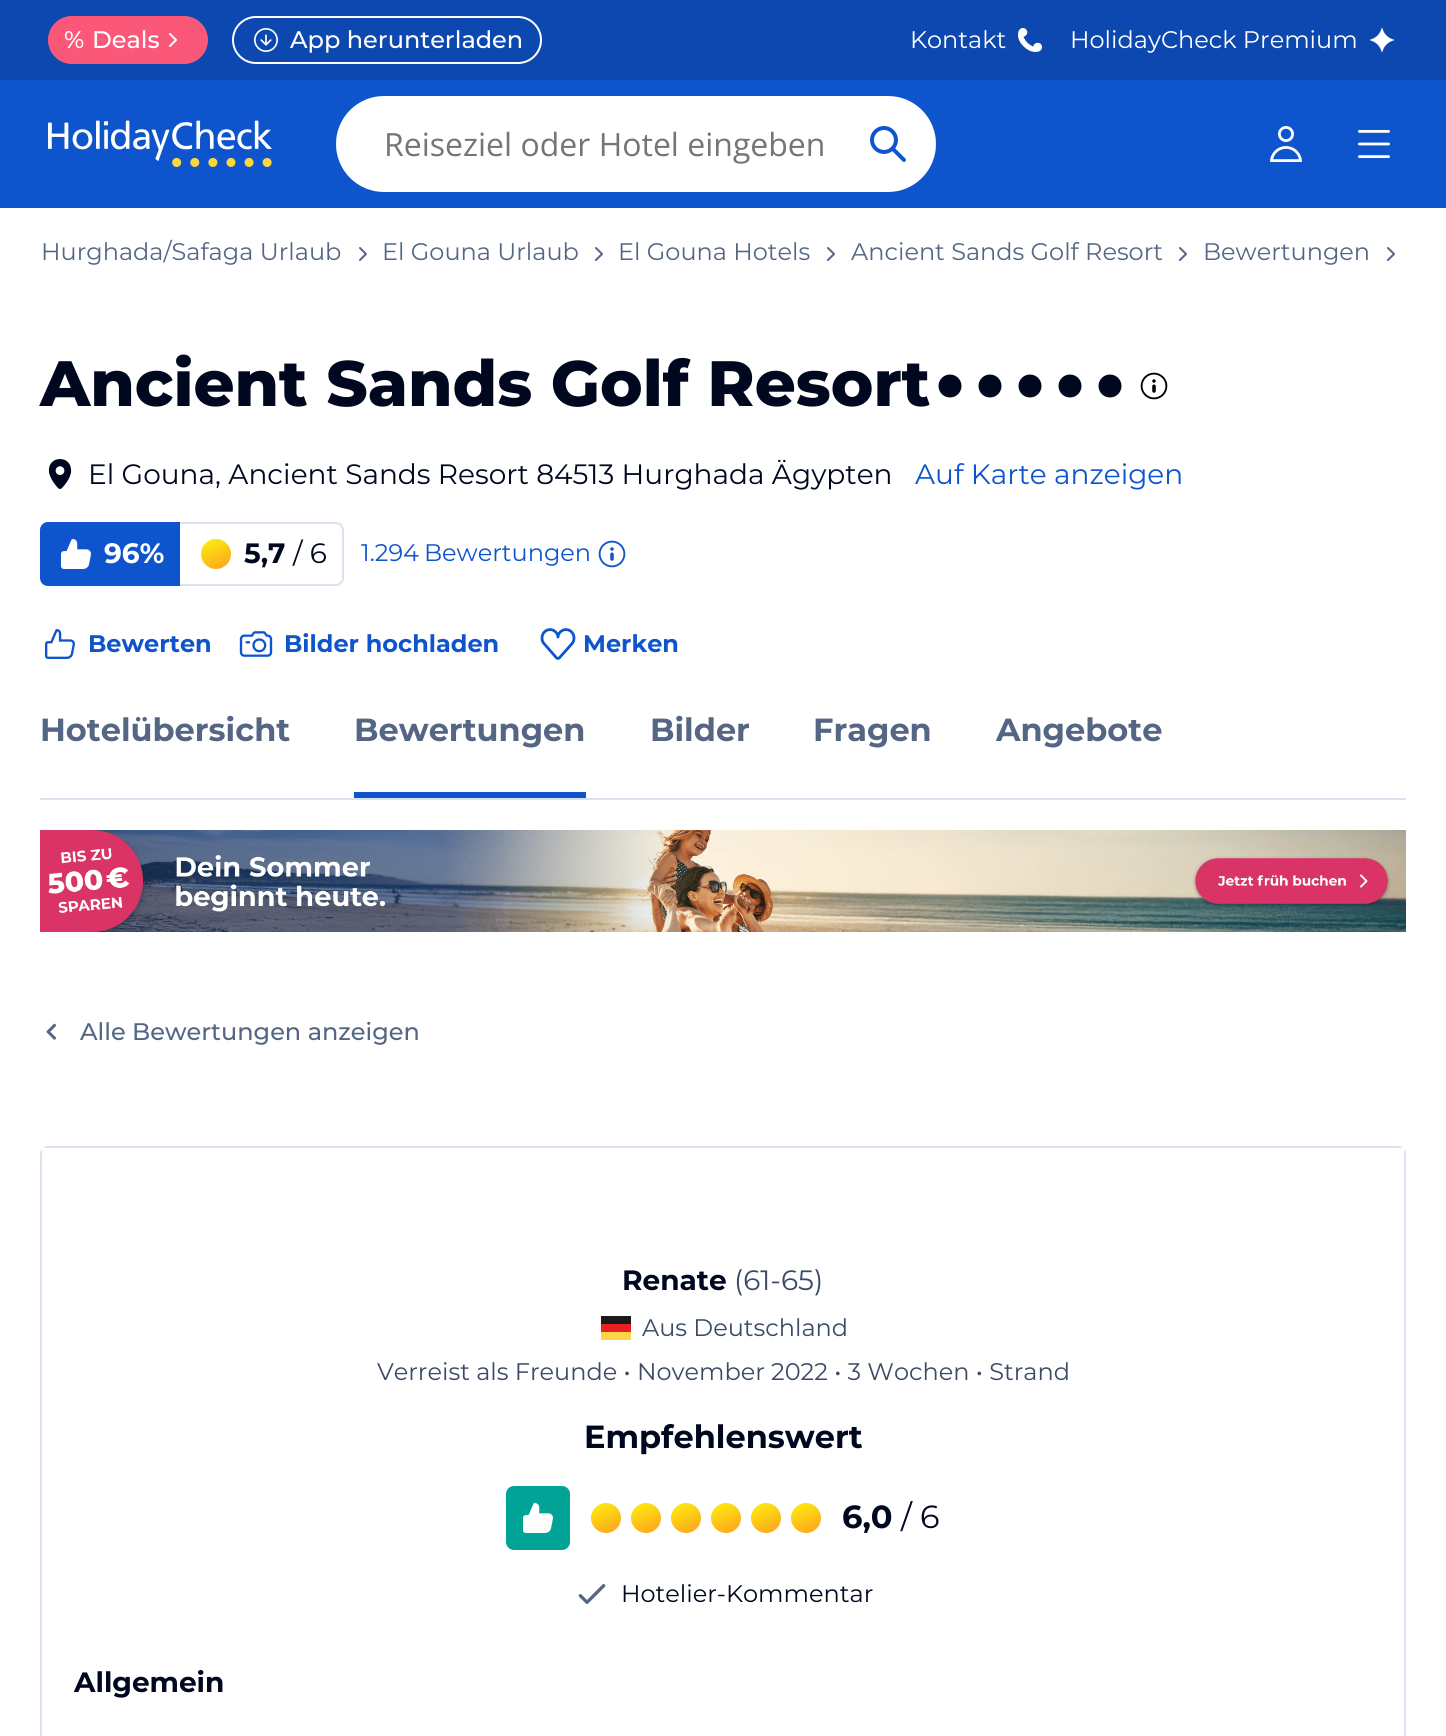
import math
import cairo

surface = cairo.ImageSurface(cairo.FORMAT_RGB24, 1446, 1736)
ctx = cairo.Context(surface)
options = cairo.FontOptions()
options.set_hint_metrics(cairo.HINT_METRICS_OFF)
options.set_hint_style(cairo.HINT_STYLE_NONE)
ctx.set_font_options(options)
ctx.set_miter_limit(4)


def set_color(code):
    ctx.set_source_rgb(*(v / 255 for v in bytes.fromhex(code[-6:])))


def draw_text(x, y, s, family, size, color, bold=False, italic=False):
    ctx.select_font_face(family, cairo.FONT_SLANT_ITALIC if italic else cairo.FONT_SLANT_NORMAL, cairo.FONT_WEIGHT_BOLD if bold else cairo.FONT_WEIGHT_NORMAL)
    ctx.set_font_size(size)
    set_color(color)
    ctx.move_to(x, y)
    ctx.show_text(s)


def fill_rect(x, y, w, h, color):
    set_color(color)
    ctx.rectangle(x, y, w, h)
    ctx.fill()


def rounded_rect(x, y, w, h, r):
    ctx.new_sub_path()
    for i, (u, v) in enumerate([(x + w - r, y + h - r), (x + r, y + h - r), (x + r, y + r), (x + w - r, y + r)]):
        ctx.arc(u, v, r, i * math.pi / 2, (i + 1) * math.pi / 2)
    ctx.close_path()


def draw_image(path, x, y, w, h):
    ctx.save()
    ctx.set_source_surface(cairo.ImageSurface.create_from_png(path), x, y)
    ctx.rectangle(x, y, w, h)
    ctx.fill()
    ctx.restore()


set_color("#ffffff")
ctx.paint()
fill_rect(0, 0, 1446, 80, "#0c48b0")
set_color("#fb5879")
rounded_rect(48, 16, 160, 48, 24)
ctx.fill()
draw_text(64, 48, "%", "Montserrat Medium", 24, "#ffffff")
draw_text(92, 48, "Deals", "Montserrat Medium", 24, "#ffffff")
draw_image("assets/img1.png", 169, 33, 8, 14)
rounded_rect(233, 17, 308, 46, 23)
ctx.stroke()
draw_image("assets/img2.png", 254, 28, 24, 24)
draw_text(290, 48, "App herunterladen", "Montserrat Medium", 24, "#ffffff")
draw_text(910, 48, "Kontakt", "Montserrat", 24, "#ffffff")
draw_image("assets/img3.png", 1018, 28, 24, 24)
draw_text(1070, 48, "HolidayCheck Premium", "Montserrat", 24, "#ffffff")
draw_image("assets/img4.png", 1369, 27, 26, 26)
fill_rect(0, 80, 1446, 128, "#0e55cd")
draw_image("assets/img5.png", 48, 120, 224, 47)
set_color("#ffffff")
rounded_rect(336, 96, 600, 96, 48)
ctx.fill()
draw_text(384, 156, "Reiseziel oder Hotel eingeben", "Open Sans", 32, "#757575")
draw_image("assets/img6.png", 870, 126, 36, 36)
draw_image("assets/img7.png", 1270, 126, 32, 36)
draw_image("assets/img8.png", 1358, 130, 32, 28)
draw_text(41, 260, "Hurghada/Safaga Urlaub", "Montserrat", 24, "#556685")
draw_image("assets/img9.png", 359, 247, 8, 14)
draw_text(382, 260, "El Gouna Urlaub", "Montserrat", 24, "#556685")
draw_image("assets/img9.png", 595, 247, 8, 14)
draw_text(618, 260, "El Gouna Hotels", "Montserrat", 24, "#556685")
draw_image("assets/img9.png", 827, 247, 8, 14)
draw_text(851, 260, "Ancient Sands Golf Resort", "Montserrat", 24, "#556685")
draw_image("assets/img9.png", 1179, 247, 8, 14)
draw_text(1203, 260, "Bewertungen", "Montserrat", 24, "#556685")
draw_image("assets/img9.png", 1387, 247, 8, 14)
draw_text(40, 406, "Ancient Sands Golf Resort", "Montserrat ExtraBold", 64, "#000820")
ctx.new_path()
ctx.arc(950, 386, 11.5, 0, 2 * math.pi)
ctx.fill()
ctx.arc(990, 386, 11.5, 0, 2 * math.pi)
ctx.fill()
ctx.arc(1030, 386, 11.5, 0, 2 * math.pi)
ctx.fill()
ctx.arc(1070, 386, 11.5, 0, 2 * math.pi)
ctx.fill()
ctx.arc(1110, 386, 11.5, 0, 2 * math.pi)
ctx.fill()
draw_image("assets/img10.png", 1140, 372, 28, 28)
draw_image("assets/img11.png", 48, 459, 24, 30)
draw_text(88, 484, "El Gouna, Ancient Sands Resort 84513 Hurghada Ägypten", "Montserrat", 28, "#000820")
draw_text(915, 484, "Auf Karte anzeigen", "Montserrat", 28, "#0e55cd")
ctx.new_path()
ctx.move_to(48, 522)
ctx.line_to(180, 522)
ctx.line_to(180, 586)
ctx.line_to(48, 586)
ctx.curve_to(43.5, 586, 40, 582.5, 40, 578)
ctx.line_to(40, 530)
ctx.curve_to(40, 525.5, 43.5, 522, 48, 522)
ctx.close_path()
ctx.fill()
draw_image("assets/img12.png", 61, 539, 30, 30)
draw_text(104, 563, "96%", "Montserrat", 28, "#ffffff", bold=True)
set_color("#d9e1ee")
ctx.set_fill_rule(cairo.FILL_RULE_EVEN_ODD)
ctx.new_path()
ctx.move_to(180, 522)
ctx.line_to(336, 522)
ctx.curve_to(340, 522, 344, 526, 344, 530)
ctx.line_to(344, 578)
ctx.curve_to(344, 582, 340, 586, 336, 586)
ctx.line_to(180, 586)
ctx.close_path()
ctx.move_to(180, 524)
ctx.line_to(336, 524)
ctx.curve_to(339, 524, 342, 527, 342, 530)
ctx.line_to(342, 578)
ctx.curve_to(342, 581, 339, 584, 336, 584)
ctx.line_to(180, 584)
ctx.close_path()
ctx.fill()
gradient = cairo.LinearGradient(210, 541, 222, 566)
gradient.add_color_stop_rgba(0, 0.988, 0.906, 0.059, 1)
gradient.add_color_stop_rgba(1, 0.996, 0.675, 0.106, 1)
ctx.set_source(gradient)
ctx.arc(216, 554, 15, 0, 2 * math.pi)
ctx.fill()
draw_text(244, 563, "5,7", "Montserrat", 28, "#000820", bold=True)
draw_text(293, 563, "/ 6", "Montserrat", 28, "#000820")
draw_text(361, 561, "1.294", "Montserrat", 24, "#0e55cd")
draw_text(424, 561, "Bewertungen", "Montserrat", 24, "#0e55cd")
draw_image("assets/img13.png", 598, 540, 28, 28)
draw_image("assets/img14.png", 45, 629, 30, 30)
draw_text(88, 652, "Bewerten", "Montserrat", 24, "#0e55cd", bold=True)
draw_image("assets/img15.png", 239, 631, 34, 26)
draw_text(284, 652, "Bilder hochladen", "Montserrat", 24, "#0e55cd", bold=True)
draw_image("assets/img16.png", 540, 628, 36, 32)
draw_text(583, 652, "Merken", "Montserrat", 24, "#0e55cd", bold=True)
fill_rect(40, 798, 1366, 2, "#d9e1ee")
draw_text(40, 741, "Hotelübersicht", "Montserrat", 32, "#556685", bold=True)
fill_rect(354, 792, 232, 6, "#0e55cd")
draw_text(354, 741, "Bewertungen", "Montserrat", 32, "#556685", bold=True)
draw_text(650, 741, "Bilder", "Montserrat", 32, "#556685", bold=True)
draw_text(813, 741, "Fragen", "Montserrat", 32, "#556685", bold=True)
draw_text(996, 741, "Angebote", "Montserrat", 32, "#556685", bold=True)
draw_image("assets/img17.png", 40, 830, 1366, 102)
draw_image("assets/img18.png", 46, 1023, 11, 17)
draw_text(80, 1040, "Alle Bewertungen anzeigen", "Montserrat Medium", 24, "#556685")
set_color("#d9e1ee")
ctx.new_path()
ctx.move_to(48, 1146)
ctx.line_to(1398, 1146)
ctx.curve_to(1402, 1146, 1406, 1150, 1406, 1154)
ctx.line_to(1406, 1614)
ctx.line_to(40, 1614)
ctx.line_to(40, 1154)
ctx.curve_to(40, 1150, 44, 1146, 48, 1146)
ctx.close_path()
ctx.move_to(48, 1148)
ctx.line_to(1398, 1148)
ctx.curve_to(1401, 1148, 1404, 1151, 1404, 1154)
ctx.line_to(1404, 1614)
ctx.line_to(42, 1614)
ctx.line_to(42, 1154)
ctx.curve_to(42, 1151, 45, 1148, 48, 1148)
ctx.close_path()
ctx.fill()
fill_rect(42, 1148, 1362, 5, "#ffffff")
draw_text(622, 1290, "Renate", "Montserrat", 28, "#000820", bold=True)
draw_text(734, 1290, "(61-65)", "Montserrat", 28, "#3b4b66")
fill_rect(601, 1316, 30, 8, "#1a1a1a")
fill_rect(601, 1324, 30, 8, "#e92024")
fill_rect(601, 1332, 30, 8, "#fcd447")
draw_text(642, 1336, "Aus Deutschland", "Montserrat", 24, "#3b4b66")
draw_text(377, 1380, "Verreist als Freunde • November 2022 • 3 Wochen • Strand", "Montserrat", 24, "#3b4b66")
draw_text(584, 1448, "Empfehlenswert", "Montserrat", 32, "#000820", bold=True)
set_color("#00a396")
rounded_rect(506, 1486, 64, 64, 8)
ctx.fill()
draw_image("assets/img19.png", 523, 1503, 30, 30)
gradient = cairo.LinearGradient(600, 1505, 612, 1530)
gradient.add_color_stop_rgba(0, 0.988, 0.906, 0.059, 1)
gradient.add_color_stop_rgba(1, 0.996, 0.675, 0.106, 1)
ctx.set_source(gradient)
ctx.arc(606, 1518, 15, 0, 2 * math.pi)
ctx.fill()
gradient = cairo.LinearGradient(640, 1505, 652, 1530)
gradient.add_color_stop_rgba(0, 0.988, 0.906, 0.059, 1)
gradient.add_color_stop_rgba(1, 0.996, 0.675, 0.106, 1)
ctx.set_source(gradient)
ctx.arc(646, 1518, 15, 0, 2 * math.pi)
ctx.fill()
gradient = cairo.LinearGradient(680, 1505, 692, 1530)
gradient.add_color_stop_rgba(0, 0.988, 0.906, 0.059, 1)
gradient.add_color_stop_rgba(1, 0.996, 0.675, 0.106, 1)
ctx.set_source(gradient)
ctx.arc(686, 1518, 15, 0, 2 * math.pi)
ctx.fill()
gradient = cairo.LinearGradient(720, 1505, 732, 1530)
gradient.add_color_stop_rgba(0, 0.988, 0.906, 0.059, 1)
gradient.add_color_stop_rgba(1, 0.996, 0.675, 0.106, 1)
ctx.set_source(gradient)
ctx.arc(726, 1518, 15, 0, 2 * math.pi)
ctx.fill()
gradient = cairo.LinearGradient(760, 1505, 772, 1530)
gradient.add_color_stop_rgba(0, 0.988, 0.906, 0.059, 1)
gradient.add_color_stop_rgba(1, 0.996, 0.675, 0.106, 1)
ctx.set_source(gradient)
ctx.arc(766, 1518, 15, 0, 2 * math.pi)
ctx.fill()
gradient = cairo.LinearGradient(800, 1505, 812, 1530)
gradient.add_color_stop_rgba(0, 0.988, 0.906, 0.059, 1)
gradient.add_color_stop_rgba(1, 0.996, 0.675, 0.106, 1)
ctx.set_source(gradient)
ctx.arc(806, 1518, 15, 0, 2 * math.pi)
ctx.fill()
draw_text(842, 1528, "6,0", "Montserrat", 32, "#000820", bold=True)
draw_text(901, 1528, "/ 6", "Montserrat", 32, "#000820")
draw_image("assets/img20.png", 578, 1584, 28, 20)
draw_text(621, 1602, "Hotelier-Kommentar", "Montserrat", 24, "#000820")
set_color("#d9e1ee")
ctx.new_path()
ctx.move_to(40, 1614)
ctx.line_to(1406, 1614)
ctx.line_to(1406, 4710)
ctx.curve_to(1406, 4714, 1402, 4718, 1398, 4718)
ctx.line_to(48, 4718)
ctx.curve_to(44, 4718, 40, 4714, 40, 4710)
ctx.close_path()
ctx.move_to(42, 1614)
ctx.line_to(1404, 1614)
ctx.line_to(1404, 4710)
ctx.curve_to(1404, 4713, 1401, 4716, 1398, 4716)
ctx.line_to(48, 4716)
ctx.curve_to(45, 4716, 42, 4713, 42, 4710)
ctx.close_path()
ctx.fill()
draw_text(74, 1692, "Allgemein", "Montserrat", 28, "#000820", bold=True)
surface.write_to_png("output.png")
